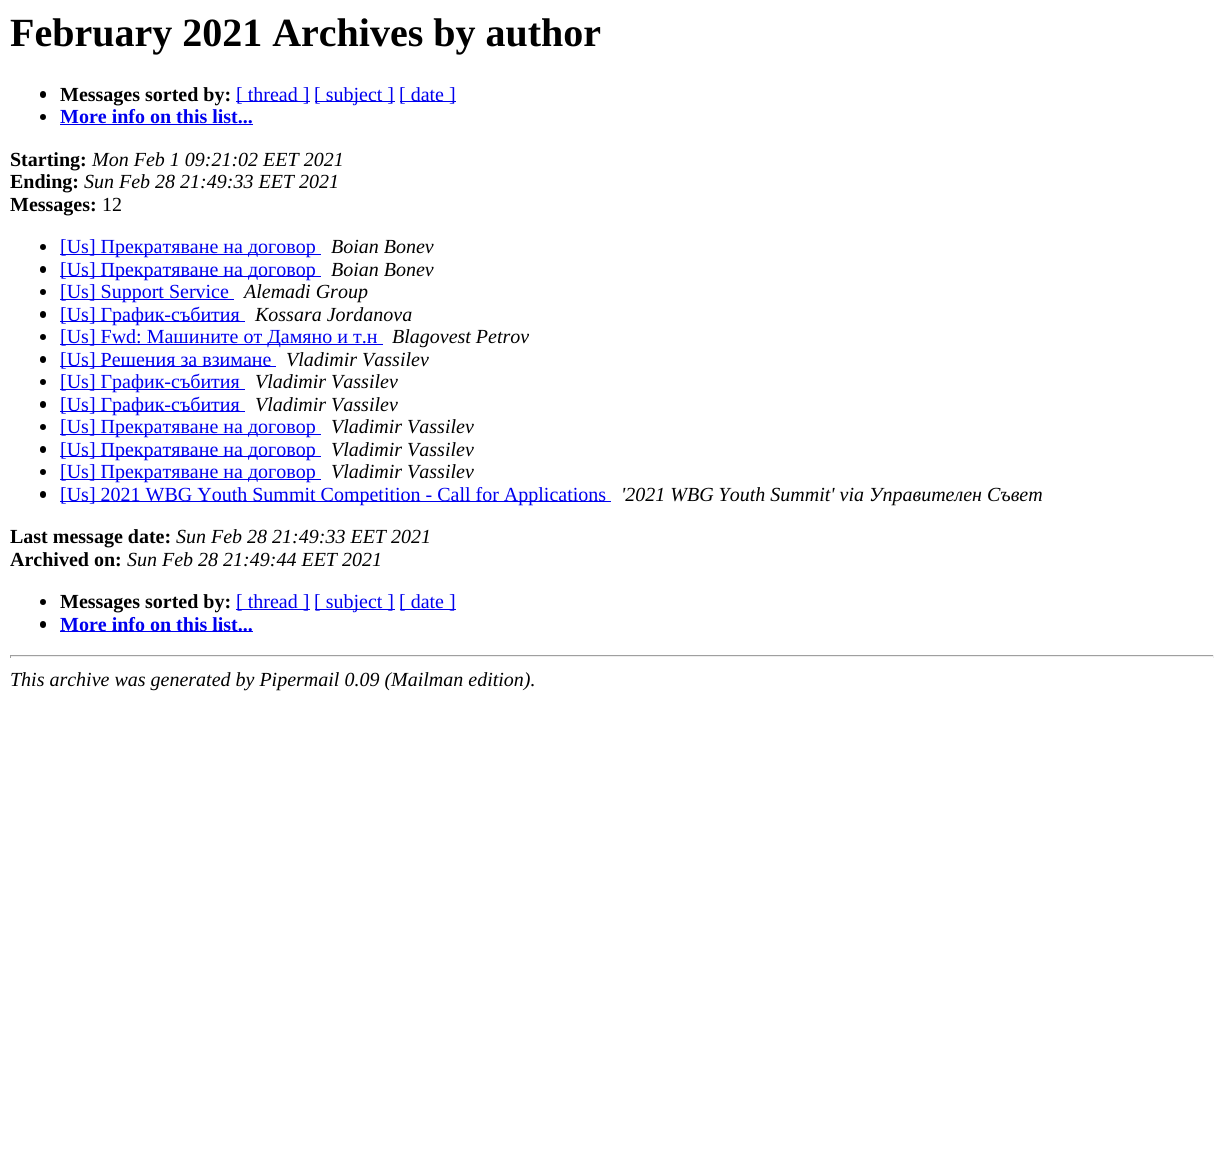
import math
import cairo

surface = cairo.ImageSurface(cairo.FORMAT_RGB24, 1223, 1153)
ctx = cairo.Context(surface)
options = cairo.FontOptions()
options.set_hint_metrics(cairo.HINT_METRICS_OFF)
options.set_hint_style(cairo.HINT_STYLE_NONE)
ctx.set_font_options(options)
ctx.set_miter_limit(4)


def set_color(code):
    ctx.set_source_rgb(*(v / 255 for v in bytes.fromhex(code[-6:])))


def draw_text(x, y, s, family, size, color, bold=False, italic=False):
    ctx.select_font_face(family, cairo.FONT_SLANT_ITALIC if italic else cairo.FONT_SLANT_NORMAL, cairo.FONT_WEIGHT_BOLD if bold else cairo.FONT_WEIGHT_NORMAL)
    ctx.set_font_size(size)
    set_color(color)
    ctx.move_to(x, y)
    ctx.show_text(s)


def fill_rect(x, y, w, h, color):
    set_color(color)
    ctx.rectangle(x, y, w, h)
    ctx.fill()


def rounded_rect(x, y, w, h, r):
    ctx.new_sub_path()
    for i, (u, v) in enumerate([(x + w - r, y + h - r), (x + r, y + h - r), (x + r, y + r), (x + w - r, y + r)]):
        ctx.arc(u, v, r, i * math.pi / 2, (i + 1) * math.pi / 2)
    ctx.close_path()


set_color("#ffffff")
ctx.paint()
draw_text(10, 46, "February 2021 Archives by author", "Liberation Serif", 40, "#000000", bold=True)
rounded_rect(40, 91, 6, 7, 3)
ctx.fill()
draw_text(60, 101, "Messages sorted by:", "Liberation Serif", 20, "#000000", bold=True)
fill_rect(236, 101, 74, 1, "#0000ee")
draw_text(236, 101, "[ thread ]", "Liberation Serif", 20, "#0000ee")
fill_rect(315, 101, 80, 1, "#0000ee")
draw_text(314, 101, "[ subject ]", "Liberation Serif", 20, "#0000ee")
fill_rect(400, 101, 56, 1, "#0000ee")
draw_text(399, 101, "[ date ]", "Liberation Serif", 20, "#0000ee")
set_color("#000000")
ctx.new_path()
ctx.arc(43, 117, 3, 0, 2 * math.pi)
ctx.fill()
draw_text(60, 123, "More info on this list...", "Liberation Serif", 20, "#0000ee", bold=True)
fill_rect(60, 124, 193, 1, "#0000ee")
draw_text(10, 166, "Starting:", "Liberation Serif", 20, "#000000", bold=True)
draw_text(92, 166, "Mon Feb 1 09:21:02 EET 2021", "Liberation Serif", 20, "#000000", italic=True)
draw_text(10, 188, "Ending:", "Liberation Serif", 20, "#000000", bold=True)
draw_text(84, 188, "Sun Feb 28 21:49:33 EET 2021", "Liberation Serif", 20, "#000000", italic=True)
draw_text(10, 211, "Messages:", "Liberation Serif", 20, "#000000", bold=True)
draw_text(102, 211, "12", "Liberation Serif", 20, "#000000")
ctx.new_path()
ctx.arc(43, 247, 3, 0, 2 * math.pi)
ctx.fill()
fill_rect(60, 254, 261, 1, "#0000ee")
draw_text(60, 253, "[Us] Прекратяване на договор", "Liberation Serif", 20, "#0000ee")
draw_text(331, 253, "Boian Bonev", "Liberation Serif", 20, "#000000", italic=True)
rounded_rect(40, 266, 6, 7, 3)
ctx.fill()
fill_rect(60, 276, 261, 1, "#0000ee")
draw_text(60, 276, "[Us] Прекратяване на договор", "Liberation Serif", 20, "#0000ee")
draw_text(331, 276, "Boian Bonev", "Liberation Serif", 20, "#000000", italic=True)
ctx.new_path()
ctx.arc(43, 292, 3, 0, 2 * math.pi)
ctx.fill()
fill_rect(60, 299, 174, 1, "#0000ee")
draw_text(60, 298, "[Us] Support Service", "Liberation Serif", 20, "#0000ee")
draw_text(244, 298, "Alemadi Group", "Liberation Serif", 20, "#000000", italic=True)
rounded_rect(40, 311, 6, 7, 3)
ctx.fill()
fill_rect(60, 321, 185, 1, "#0000ee")
draw_text(60, 321, "[Us] График-събития", "Liberation Serif", 20, "#0000ee")
draw_text(255, 321, "Kossara Jordanova", "Liberation Serif", 20, "#000000", italic=True)
ctx.new_path()
ctx.arc(43, 337, 3, 0, 2 * math.pi)
ctx.fill()
fill_rect(60, 344, 323, 1, "#0000ee")
draw_text(60, 343, "[Us] Fwd: Машините от Дамяно и т.н", "Liberation Serif", 20, "#0000ee")
draw_text(392, 343, "Blagovest Petrov", "Liberation Serif", 20, "#000000", italic=True)
rounded_rect(40, 356, 6, 7, 3)
ctx.fill()
fill_rect(60, 366, 216, 1, "#0000ee")
draw_text(60, 366, "[Us] Решения за взимане", "Liberation Serif", 20, "#0000ee")
draw_text(286, 366, "Vladimir Vassilev", "Liberation Serif", 20, "#000000", italic=True)
ctx.new_path()
ctx.arc(43, 382, 3, 0, 2 * math.pi)
ctx.fill()
fill_rect(60, 389, 185, 1, "#0000ee")
draw_text(60, 388, "[Us] График-събития", "Liberation Serif", 20, "#0000ee")
draw_text(255, 388, "Vladimir Vassilev", "Liberation Serif", 20, "#000000", italic=True)
rounded_rect(40, 401, 6, 7, 3)
ctx.fill()
fill_rect(60, 411, 185, 1, "#0000ee")
draw_text(60, 411, "[Us] График-събития", "Liberation Serif", 20, "#0000ee")
draw_text(255, 411, "Vladimir Vassilev", "Liberation Serif", 20, "#000000", italic=True)
ctx.new_path()
ctx.arc(43, 427, 3, 0, 2 * math.pi)
ctx.fill()
fill_rect(60, 434, 261, 1, "#0000ee")
draw_text(60, 433, "[Us] Прекратяване на договор", "Liberation Serif", 20, "#0000ee")
draw_text(331, 433, "Vladimir Vassilev", "Liberation Serif", 20, "#000000", italic=True)
rounded_rect(40, 446, 6, 7, 3)
ctx.fill()
fill_rect(60, 456, 261, 1, "#0000ee")
draw_text(60, 456, "[Us] Прекратяване на договор", "Liberation Serif", 20, "#0000ee")
draw_text(331, 456, "Vladimir Vassilev", "Liberation Serif", 20, "#000000", italic=True)
ctx.new_path()
ctx.arc(43, 472, 3, 0, 2 * math.pi)
ctx.fill()
fill_rect(60, 479, 261, 1, "#0000ee")
draw_text(60, 478, "[Us] Прекратяване на договор", "Liberation Serif", 20, "#0000ee")
draw_text(331, 478, "Vladimir Vassilev", "Liberation Serif", 20, "#000000", italic=True)
rounded_rect(40, 491, 6, 7, 3)
ctx.fill()
fill_rect(60, 501, 551, 1, "#0000ee")
draw_text(60, 501, "[Us] 2021 WBG Youth Summit Competition - Call for Applications", "Liberation Serif", 20, "#0000ee")
draw_text(621, 501, "'2021 WBG Youth Summit' via Управителен Съвет", "Liberation Serif", 20, "#000000", italic=True)
draw_text(10, 543, "Last message date:", "Liberation Serif", 20, "#000000", bold=True)
draw_text(176, 543, "Sun Feb 28 21:49:33 EET 2021", "Liberation Serif", 20, "#000000", italic=True)
draw_text(10, 566, "Archived on:", "Liberation Serif", 20, "#000000", bold=True)
draw_text(127, 566, "Sun Feb 28 21:49:44 EET 2021", "Liberation Serif", 20, "#000000", italic=True)
ctx.new_path()
ctx.arc(43, 602, 3, 0, 2 * math.pi)
ctx.fill()
draw_text(60, 608, "Messages sorted by:", "Liberation Serif", 20, "#000000", bold=True)
fill_rect(236, 609, 74, 1, "#0000ee")
draw_text(236, 608, "[ thread ]", "Liberation Serif", 20, "#0000ee")
fill_rect(315, 609, 80, 1, "#0000ee")
draw_text(314, 608, "[ subject ]", "Liberation Serif", 20, "#0000ee")
fill_rect(400, 609, 56, 1, "#0000ee")
draw_text(399, 608, "[ date ]", "Liberation Serif", 20, "#0000ee")
set_color("#000000")
rounded_rect(40, 621, 6, 7, 3)
ctx.fill()
fill_rect(60, 631, 193, 1, "#0000ee")
draw_text(60, 631, "More info on this list...", "Liberation Serif", 20, "#0000ee", bold=True)
fill_rect(10, 655, 1204, 1, "#9f9f9f")
fill_rect(1213, 655, 1, 3, "#eeeeee")
fill_rect(10, 656, 1204, 1, "#eeeeee")
fill_rect(10, 655, 1, 3, "#9f9f9f")
draw_text(10, 686, "This archive was generated by Pipermail 0.09 (Mailman edition).", "Liberation Serif", 20, "#000000", italic=True)
surface.write_to_png("output.png")
